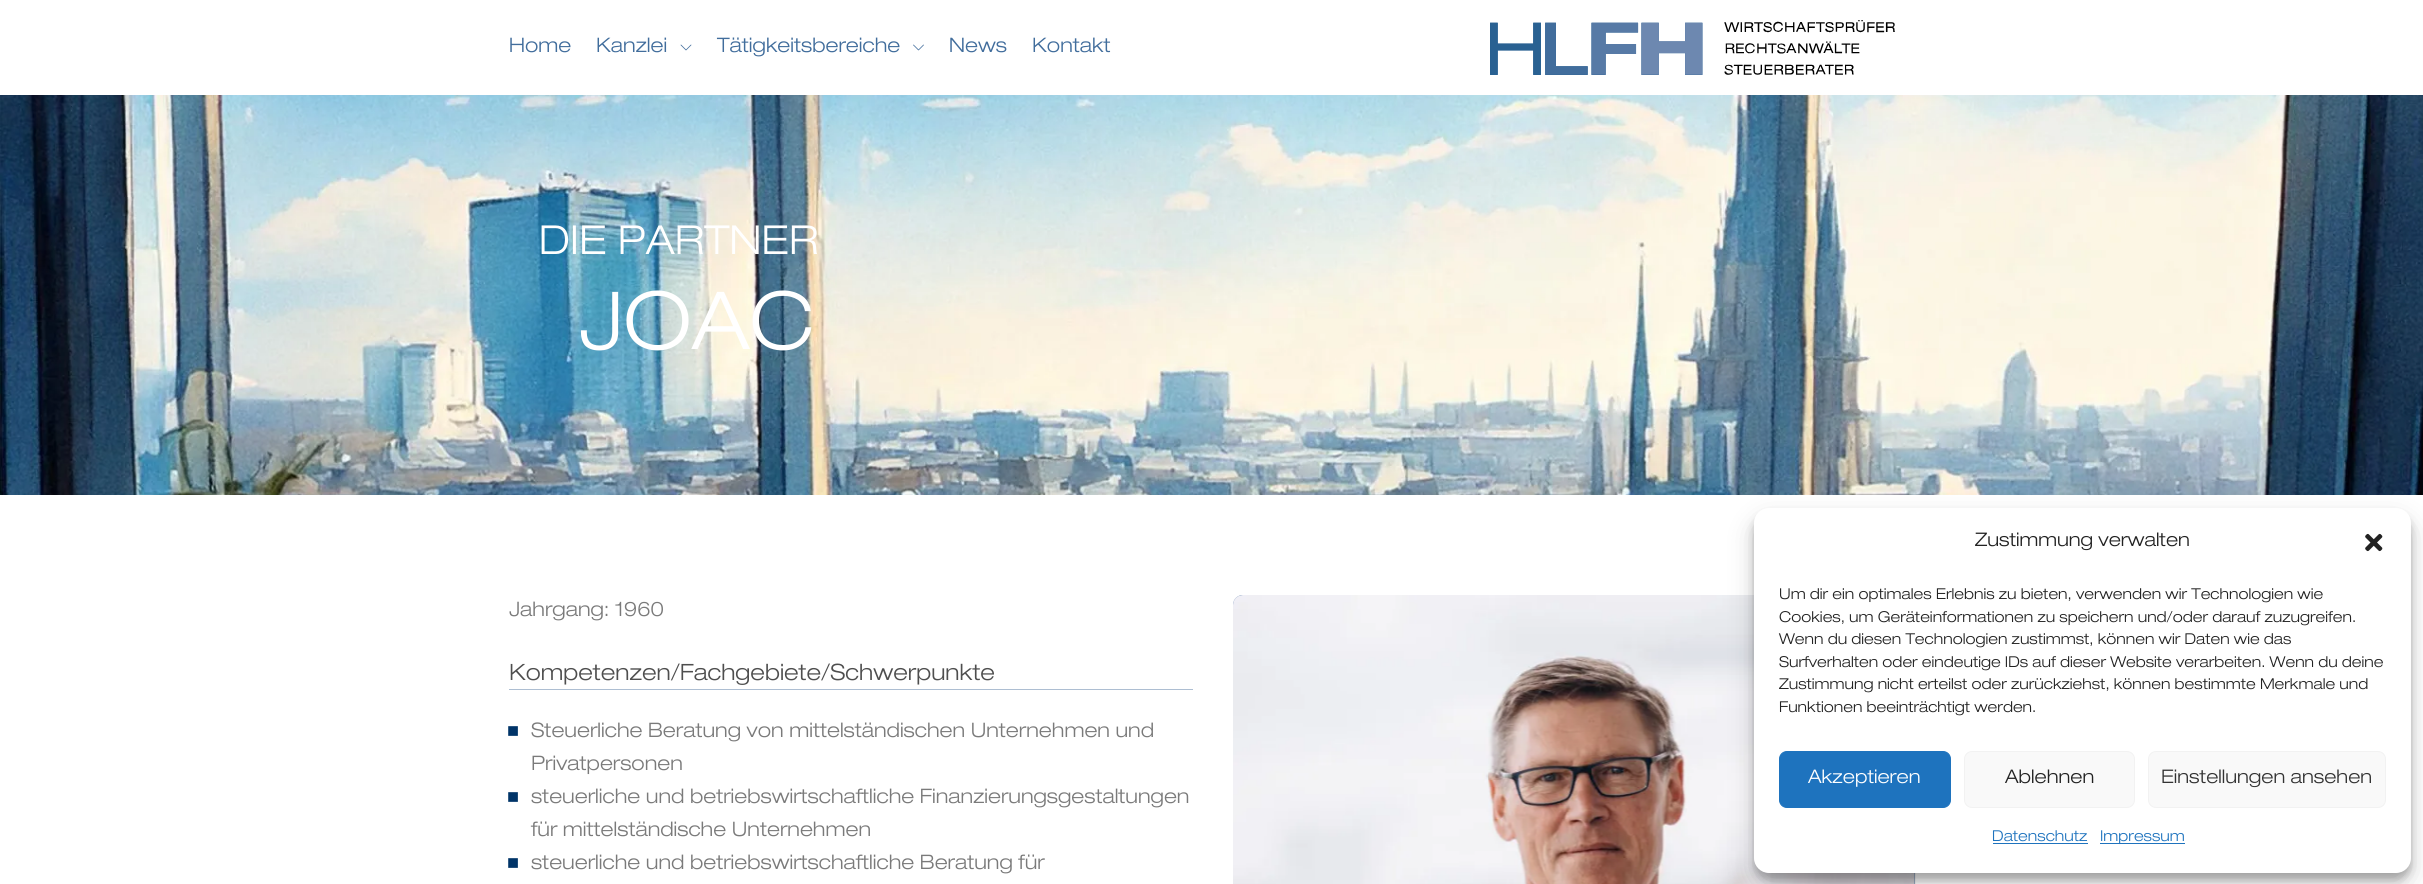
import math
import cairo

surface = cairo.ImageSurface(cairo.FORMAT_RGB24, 2423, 884)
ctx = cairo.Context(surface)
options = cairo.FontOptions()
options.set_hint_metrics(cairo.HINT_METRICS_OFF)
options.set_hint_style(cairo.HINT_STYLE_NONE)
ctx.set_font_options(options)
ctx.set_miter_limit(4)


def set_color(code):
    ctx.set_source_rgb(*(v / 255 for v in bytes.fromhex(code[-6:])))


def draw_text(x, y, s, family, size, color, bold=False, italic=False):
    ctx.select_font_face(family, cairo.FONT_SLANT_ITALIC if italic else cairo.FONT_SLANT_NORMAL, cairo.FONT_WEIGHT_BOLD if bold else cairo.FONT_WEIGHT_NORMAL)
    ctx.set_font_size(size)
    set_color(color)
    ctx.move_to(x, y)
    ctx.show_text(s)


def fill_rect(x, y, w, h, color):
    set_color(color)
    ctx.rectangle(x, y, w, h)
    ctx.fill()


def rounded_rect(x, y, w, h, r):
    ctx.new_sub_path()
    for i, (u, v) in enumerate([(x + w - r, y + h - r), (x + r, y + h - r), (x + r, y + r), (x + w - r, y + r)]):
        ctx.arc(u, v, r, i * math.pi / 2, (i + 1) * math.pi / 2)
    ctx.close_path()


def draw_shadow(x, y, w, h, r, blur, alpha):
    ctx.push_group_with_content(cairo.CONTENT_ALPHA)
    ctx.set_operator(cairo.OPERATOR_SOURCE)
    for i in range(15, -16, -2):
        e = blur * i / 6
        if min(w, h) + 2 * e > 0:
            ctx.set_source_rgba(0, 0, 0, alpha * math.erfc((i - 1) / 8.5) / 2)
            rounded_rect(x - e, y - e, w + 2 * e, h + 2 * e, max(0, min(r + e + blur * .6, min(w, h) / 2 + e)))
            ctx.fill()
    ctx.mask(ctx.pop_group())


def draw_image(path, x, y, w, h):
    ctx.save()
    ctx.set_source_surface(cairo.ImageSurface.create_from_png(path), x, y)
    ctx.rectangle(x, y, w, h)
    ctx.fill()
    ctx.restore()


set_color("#ffffff")
ctx.paint()
draw_text(509, 52, "Home", "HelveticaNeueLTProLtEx", 20, "#416d9c")
draw_text(596, 52, "Kanzlei", "HelveticaNeueLTProLtEx", 20, "#416d9c")
draw_image("assets/img1.png", 680, 44, 12, 7)
draw_text(717, 52, "Tätigkeitsbereiche", "HelveticaNeueLTProLtEx", 20, "#416d9c")
draw_image("assets/img2.png", 913, 44, 11, 7)
draw_text(949, 52, "News", "HelveticaNeueLTProLtEx", 20, "#416d9c")
draw_text(1032, 52, "Kontakt", "HelveticaNeueLTProLtEx", 20, "#416d9c")
draw_image("assets/img3.png", 1490, 20, 405, 55)
draw_image("assets/img4.png", 0, 95, 2423, 400)
draw_text(539, 254, "DIE PARTNER", "HelveticaNeueLTProLtEx", 40, "#ffffff")
draw_text(579, 349, "JOAC", "HelveticaNeueLTProLtEx", 80, "#ffffff")
draw_text(509, 616, "Jahrgang: 1960", "HelveticaNeueLTProLtEx", 20, "#7a7a7a")
fill_rect(509, 689, 684, 1, "#adbed2")
draw_text(509, 680, "Kompetenzen/Fachgebiete/Schwerpunkte", "HelveticaNeueLTProLtEx", 22.5, "#4e4e4e")
draw_text(507, 737, "■", "Liberation Sans", 20, "#003468")
draw_text(531, 737, "Steuerliche Beratung von mittelständischen Unternehmen und", "HelveticaNeueLTProLtEx", 20, "#7a7a7a")
draw_text(531, 770, "Privatpersonen", "HelveticaNeueLTProLtEx", 20, "#7a7a7a")
draw_text(507, 803, "■", "Liberation Sans", 20, "#003468")
draw_text(531, 803, "steuerliche und betriebswirtschaftliche Finanzierungsgestaltungen", "HelveticaNeueLTProLtEx", 20, "#7a7a7a")
draw_text(531, 836, "für mittelständische Unternehmen", "HelveticaNeueLTProLtEx", 20, "#7a7a7a")
draw_text(507, 869, "■", "Liberation Sans", 20, "#003468")
draw_text(531, 869, "steuerliche und betriebswirtschaftliche Beratung für", "HelveticaNeueLTProLtEx", 20, "#7a7a7a")
set_color("#416d9c")
rounded_rect(1233, 595, 682, 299, 10)
ctx.fill()
draw_image("assets/img5.png", 1233, 595, 683, 289)
set_color("#000000")
draw_shadow(1754, 515, 657, 365, 15, 4, 0.23)
draw_shadow(1754, 520, 657, 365, 15, 12.5, 0.19)
set_color("#ffffff")
rounded_rect(1754, 508, 657, 365, 15)
ctx.fill()
draw_text(1975, 546, "Zustimmung verwalten", "HelveticaNeueLTProLtEx", 18.75, "#222222")
draw_image("assets/img6.png", 2365, 533, 18, 19)
draw_text(1779, 599, "Um dir ein optimales Erlebnis zu bieten, verwenden wir Technologien wie", "HelveticaNeueLTProLtEx", 15, "#222222")
draw_text(1779, 622, "Cookies, um Geräteinformationen zu speichern und/oder darauf zuzugreifen.", "HelveticaNeueLTProLtEx", 15, "#222222")
draw_text(1779, 644, "Wenn du diesen Technologien zustimmst, können wir Daten wie das", "HelveticaNeueLTProLtEx", 15, "#222222")
draw_text(1779, 667, "Surfverhalten oder eindeutige IDs auf dieser Website verarbeiten. Wenn du deine", "HelveticaNeueLTProLtEx", 15, "#222222")
draw_text(1779, 689, "Zustimmung nicht erteilst oder zurückziehst, können bestimmte Merkmale und", "HelveticaNeueLTProLtEx", 15, "#222222")
draw_text(1779, 712, "Funktionen beeinträchtigt werden.", "HelveticaNeueLTProLtEx", 15, "#222222")
set_color("#1e73be")
rounded_rect(1779.5, 751.5, 171, 56, 7.5)
ctx.fill_preserve()
ctx.set_line_width(1)
ctx.stroke()
draw_text(1808, 783, "Akzeptieren", "HelveticaNeueLTProLtEx", 18.75, "#ffffff")
set_color("#f9f9f9")
rounded_rect(1964.5, 751.5, 170, 56, 7.5)
ctx.fill_preserve()
set_color("#f2f2f2")
ctx.stroke()
draw_text(2005, 783, "Ablehnen", "HelveticaNeueLTProLtEx", 18.75, "#222222")
set_color("#f9f9f9")
rounded_rect(2148.5, 751.5, 237, 56, 7.5)
ctx.fill_preserve()
set_color("#f2f2f2")
ctx.stroke()
draw_text(2161, 783, "Einstellungen ansehen", "HelveticaNeueLTProLtEx", 18.75, "#333333")
draw_text(1992, 841, "Datenschutz", "HelveticaNeueLTProLtEx", 15, "#1e73be")
fill_rect(1993, 843, 95, 1, "#1e73be")
fill_rect(2100, 843, 85, 1, "#1e73be")
draw_text(2100, 841, "Impressum", "HelveticaNeueLTProLtEx", 15, "#1e73be")
surface.write_to_png("output.png")
